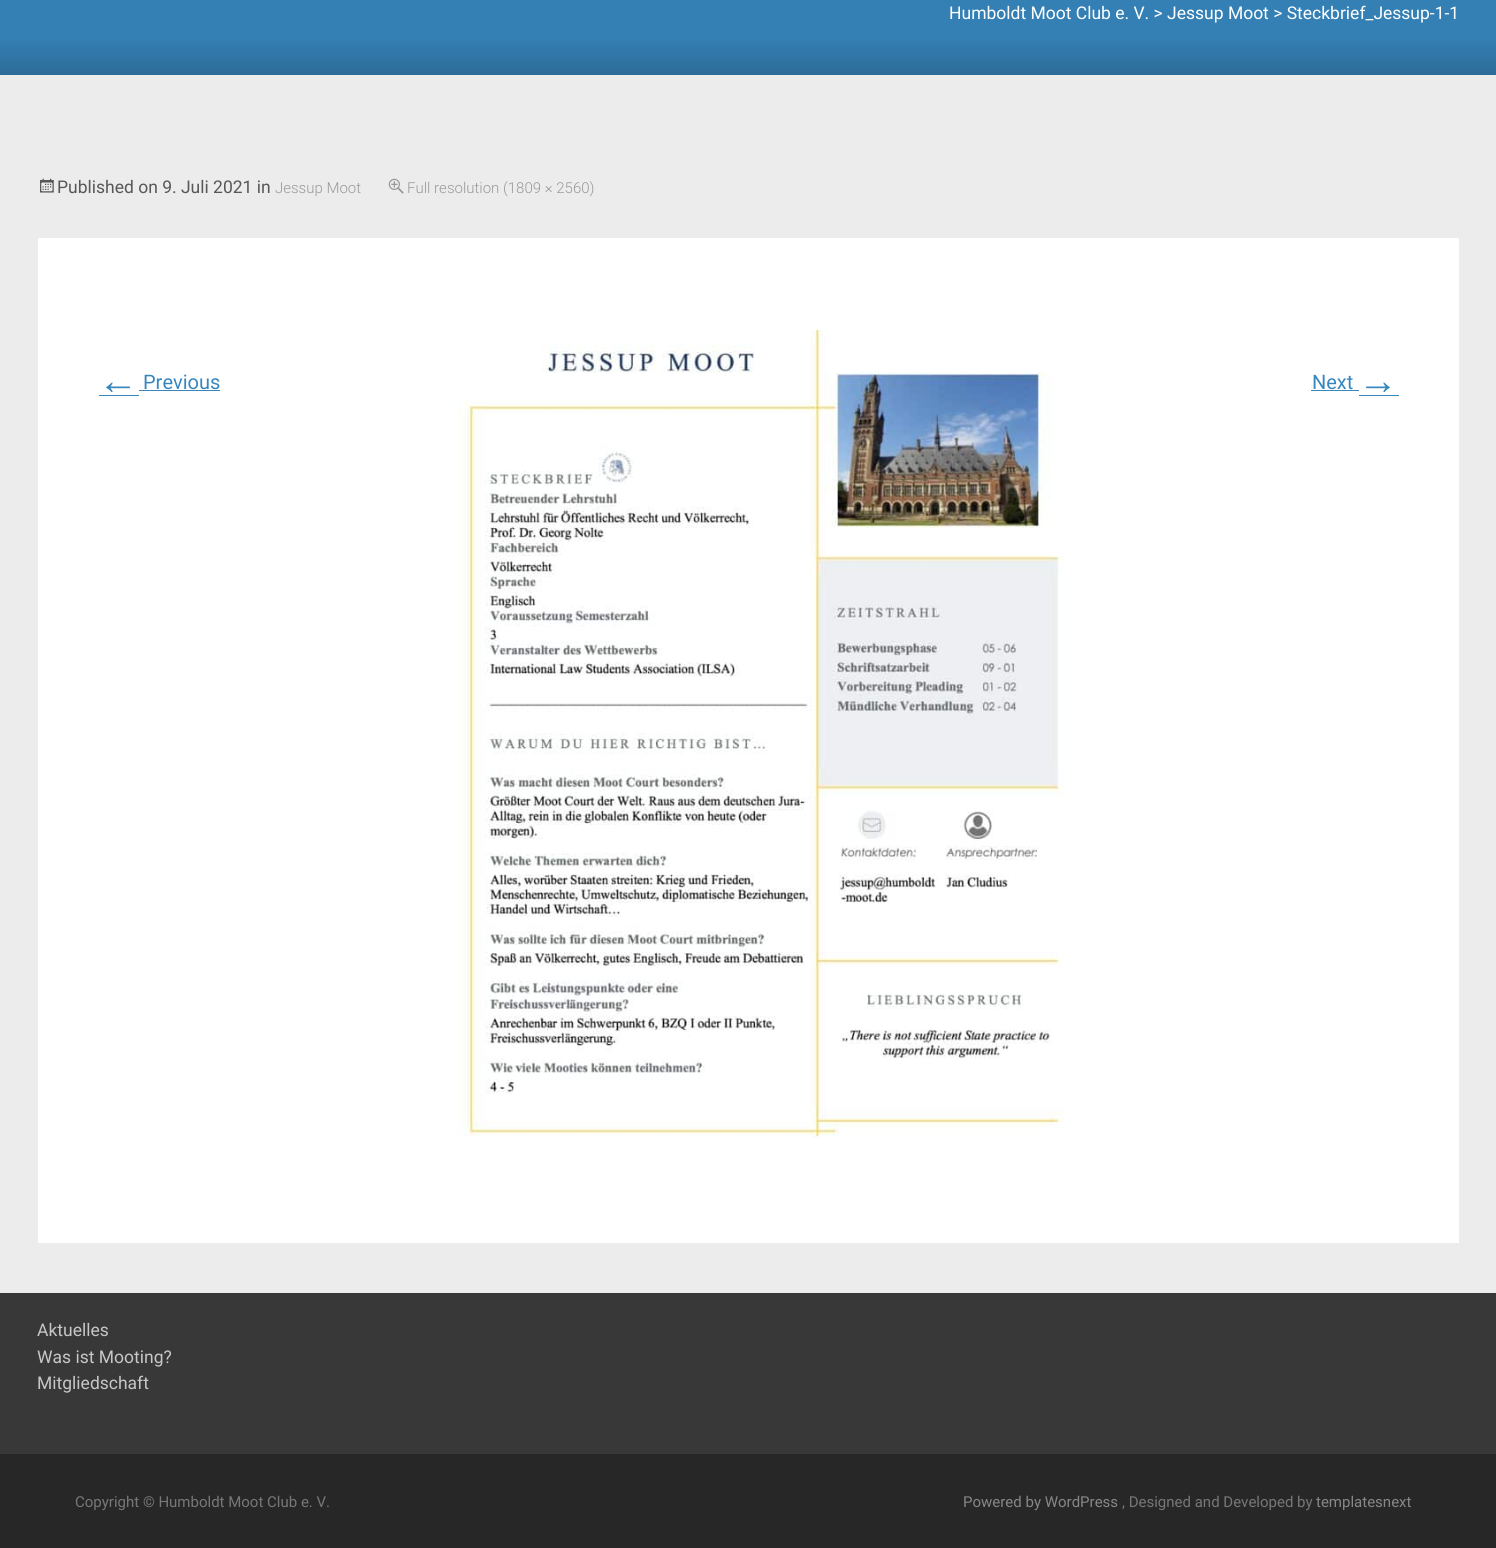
import math
import cairo

surface = cairo.ImageSurface(cairo.FORMAT_RGB24, 1496, 1548)
ctx = cairo.Context(surface)
options = cairo.FontOptions()
options.set_hint_metrics(cairo.HINT_METRICS_OFF)
options.set_hint_style(cairo.HINT_STYLE_NONE)
ctx.set_font_options(options)
ctx.set_miter_limit(4)


def set_color(code):
    ctx.set_source_rgb(*(v / 255 for v in bytes.fromhex(code[-6:])))


def draw_text(x, y, s, family, size, color, bold=False, italic=False):
    ctx.select_font_face(family, cairo.FONT_SLANT_ITALIC if italic else cairo.FONT_SLANT_NORMAL, cairo.FONT_WEIGHT_BOLD if bold else cairo.FONT_WEIGHT_NORMAL)
    ctx.set_font_size(size)
    set_color(color)
    ctx.move_to(x, y)
    ctx.show_text(s)


def fill_rect(x, y, w, h, color):
    set_color(color)
    ctx.rectangle(x, y, w, h)
    ctx.fill()


def draw_image(path, x, y, w, h):
    ctx.save()
    ctx.set_source_surface(cairo.ImageSurface.create_from_png(path), x, y)
    ctx.rectangle(x, y, w, h)
    ctx.fill()
    ctx.restore()


set_color("#272727")
ctx.paint()
gradient = cairo.LinearGradient(748, -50, 748, 75)
gradient.add_color_stop_rgba(0, 0.173, 0.424, 0.596, 1)
gradient.add_color_stop_rgba(0.3, 0.204, 0.502, 0.71, 1)
gradient.add_color_stop_rgba(0.69, 0.204, 0.502, 0.71, 1)
gradient.add_color_stop_rgba(1, 0.173, 0.424, 0.596, 1)
ctx.set_source(gradient)
ctx.rectangle(0, 0, 1496, 75)
ctx.fill()
draw_text(949, 19, "Humboldt Moot Club e. V. > Jessup Moot > Steckbrief_Jessup-1-1", "Roboto", 17.5, "#ffffff")
fill_rect(0, 75, 1496, 1218, "#ececec")
draw_image("assets/img1.png", 40, 178, 14, 15)
draw_text(57, 193, "Published on 9. Juli 2021 in", "Roboto", 17.5, "#575757")
draw_text(275, 193, "Jessup Moot", "Roboto Light", 15, "#999999")
draw_image("assets/img2.png", 388, 178, 16, 16)
draw_text(407, 193, "Full resolution (1809 × 2560)", "Roboto Light", 15, "#999999")
fill_rect(38, 238, 1421, 1005, "#ffffff")
draw_image("assets/img3.png", 457, 329, 608, 809)
draw_text(98, 394, "←", "Liberation Sans", 40, "#3787be")
fill_rect(99, 395, 40, 1, "#3787be")
fill_rect(139, 390, 81, 1, "#3787be")
draw_text(143, 389, "Previous", "Roboto", 20, "#3787be")
draw_text(1312, 389, "Next", "Roboto", 20, "#3787be")
draw_text(1358, 394, "→", "Liberation Sans", 40, "#3787be")
fill_rect(1311, 390, 48, 1, "#3787be")
fill_rect(1359, 395, 40, 1, "#3787be")
fill_rect(0, 1293, 1496, 161, "#383838")
draw_text(37, 1336, "Aktuelles", "Roboto", 17.5, "#c7c7c7")
draw_text(37, 1363, "Was ist Mooting?", "Roboto", 17.5, "#c7c7c7")
draw_text(37, 1389, "Mitgliedschaft", "Roboto", 17.5, "#c7c7c7")
draw_text(75, 1507, "Copyright © Humboldt Moot Club e. V.", "Roboto", 15, "#777777")
draw_text(963, 1507, "Powered by WordPress", "Roboto", 15, "#878787")
draw_text(1122, 1507, ", Designed and Developed by", "Roboto", 15, "#777777")
draw_text(1316, 1507, "templatesnext", "Roboto", 15, "#878787")
surface.write_to_png("output.png")
